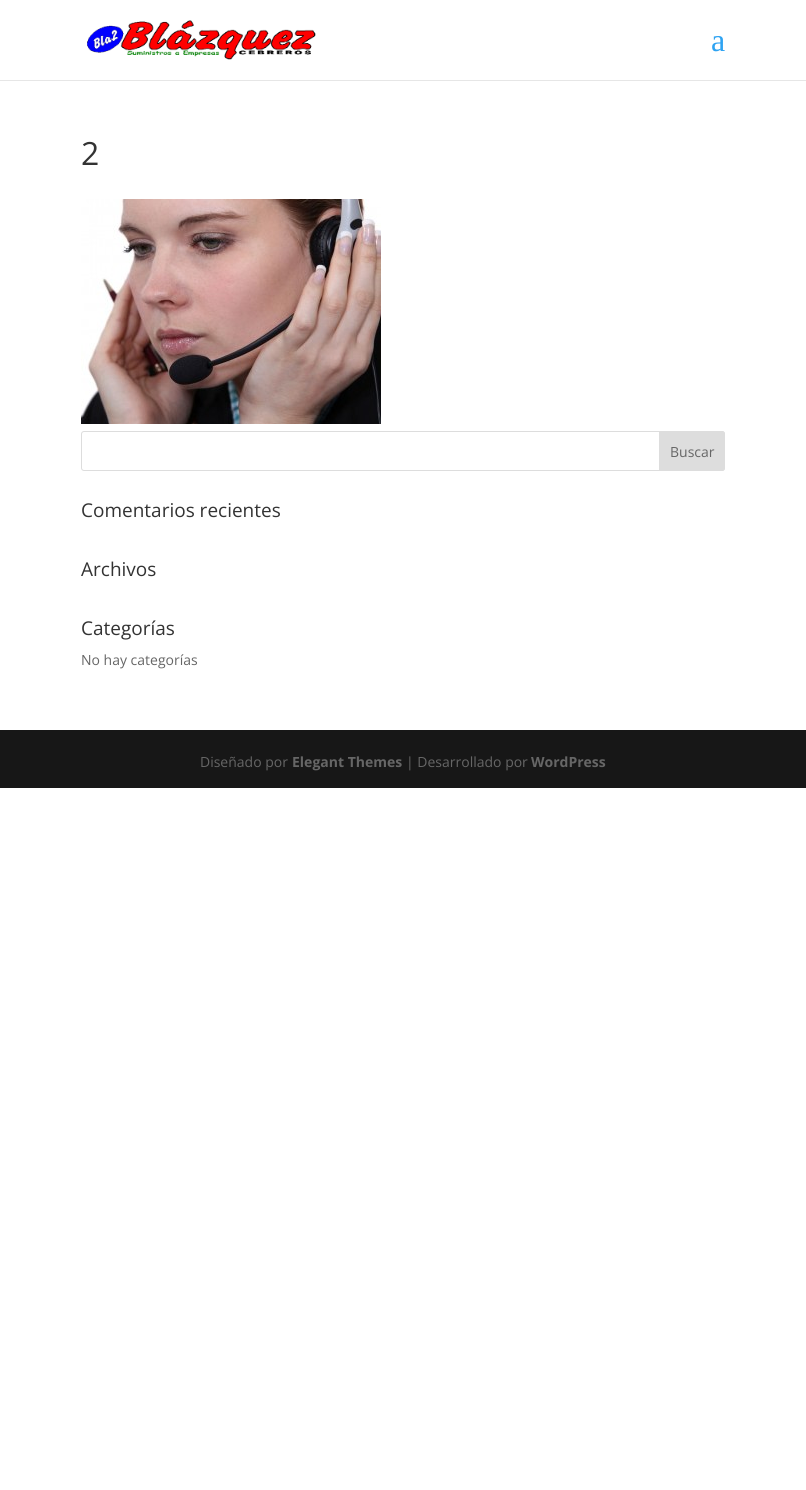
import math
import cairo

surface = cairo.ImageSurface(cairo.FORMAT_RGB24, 806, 1490)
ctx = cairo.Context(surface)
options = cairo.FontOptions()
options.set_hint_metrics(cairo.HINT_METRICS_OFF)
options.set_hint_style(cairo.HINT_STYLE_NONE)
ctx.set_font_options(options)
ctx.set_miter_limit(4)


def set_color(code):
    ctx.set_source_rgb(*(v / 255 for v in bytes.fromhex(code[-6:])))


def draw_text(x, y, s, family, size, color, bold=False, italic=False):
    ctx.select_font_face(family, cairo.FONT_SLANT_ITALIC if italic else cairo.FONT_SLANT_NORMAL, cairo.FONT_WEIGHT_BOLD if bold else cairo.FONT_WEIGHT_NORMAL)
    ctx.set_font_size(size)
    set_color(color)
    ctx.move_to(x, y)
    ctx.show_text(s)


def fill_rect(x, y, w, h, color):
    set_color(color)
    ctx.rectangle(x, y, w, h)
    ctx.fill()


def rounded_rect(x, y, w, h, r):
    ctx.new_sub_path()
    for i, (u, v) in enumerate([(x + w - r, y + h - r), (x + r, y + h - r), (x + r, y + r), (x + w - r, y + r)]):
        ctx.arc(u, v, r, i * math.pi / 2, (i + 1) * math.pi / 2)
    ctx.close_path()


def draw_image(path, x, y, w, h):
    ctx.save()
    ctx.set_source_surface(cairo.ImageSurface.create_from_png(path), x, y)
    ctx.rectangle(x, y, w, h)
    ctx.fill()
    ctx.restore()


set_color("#ffffff")
ctx.paint()
fill_rect(0, 80, 806, 1, "#e6e6e6")
draw_image("assets/img1.png", 87, 20, 229, 40)
draw_text(711, 51, "a", "Liberation Serif", 32, "#2ea3f2")
draw_text(81, 165, "2", "Open Sans", 32, "#333333")
draw_image("assets/img2.png", 81, 199, 300, 225)
rounded_rect(81.5, 431.5, 643, 39, 2.5)
set_color("#dddddd")
ctx.set_line_width(1)
ctx.stroke()
ctx.new_path()
ctx.move_to(659.5, 431.5)
ctx.line_to(722, 431.5)
ctx.curve_to(723.5, 431.5, 724.5, 432.5, 724.5, 434)
ctx.line_to(724.5, 468)
ctx.curve_to(724.5, 469.5, 723.5, 470.5, 722, 470.5)
ctx.line_to(659.5, 470.5)
ctx.close_path()
ctx.fill_preserve()
ctx.stroke()
draw_text(670, 457, "Buscar", "Open Sans", 14, "#666666")
draw_text(81, 517, "Comentarios recientes", "Open Sans", 19, "#333333")
draw_text(81, 576, "Archivos", "Open Sans", 19, "#333333")
draw_text(81, 635, "Categorías", "Open Sans", 19, "#333333")
draw_text(81, 665, "No hay categorías", "Open Sans", 14, "#666666")
fill_rect(0, 730, 806, 58, "#171717")
draw_text(200, 767, "Diseñado por", "Open Sans", 14, "#666666")
draw_text(292, 767, "Elegant Themes", "Open Sans", 14, "#666666", bold=True)
draw_text(406, 767, "| Desarrollado por", "Open Sans", 14, "#666666")
draw_text(531, 767, "WordPress", "Open Sans", 14, "#666666", bold=True)
surface.write_to_png("output.png")
